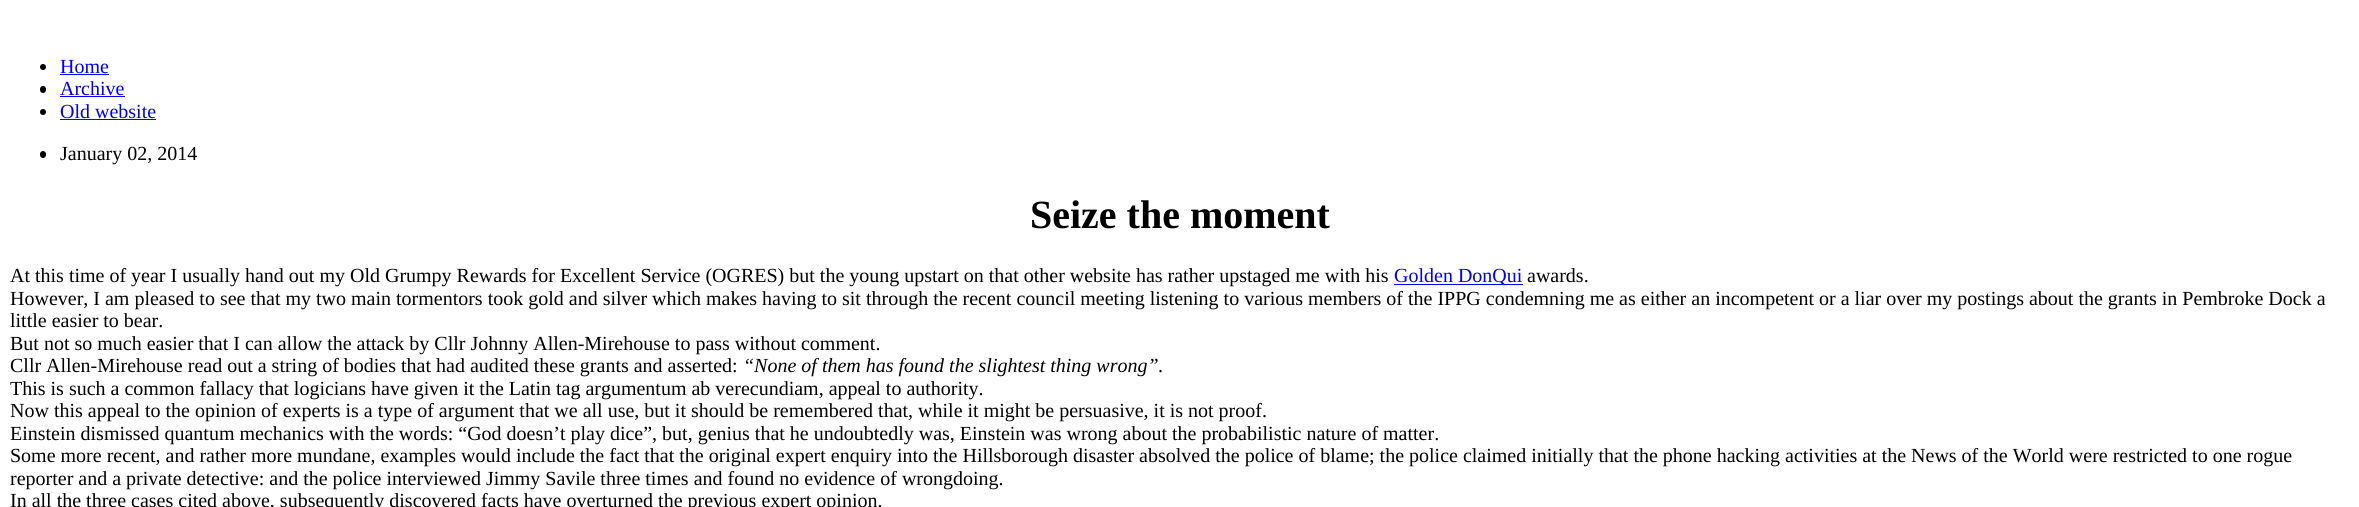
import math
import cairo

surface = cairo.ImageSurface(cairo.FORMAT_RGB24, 2359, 507)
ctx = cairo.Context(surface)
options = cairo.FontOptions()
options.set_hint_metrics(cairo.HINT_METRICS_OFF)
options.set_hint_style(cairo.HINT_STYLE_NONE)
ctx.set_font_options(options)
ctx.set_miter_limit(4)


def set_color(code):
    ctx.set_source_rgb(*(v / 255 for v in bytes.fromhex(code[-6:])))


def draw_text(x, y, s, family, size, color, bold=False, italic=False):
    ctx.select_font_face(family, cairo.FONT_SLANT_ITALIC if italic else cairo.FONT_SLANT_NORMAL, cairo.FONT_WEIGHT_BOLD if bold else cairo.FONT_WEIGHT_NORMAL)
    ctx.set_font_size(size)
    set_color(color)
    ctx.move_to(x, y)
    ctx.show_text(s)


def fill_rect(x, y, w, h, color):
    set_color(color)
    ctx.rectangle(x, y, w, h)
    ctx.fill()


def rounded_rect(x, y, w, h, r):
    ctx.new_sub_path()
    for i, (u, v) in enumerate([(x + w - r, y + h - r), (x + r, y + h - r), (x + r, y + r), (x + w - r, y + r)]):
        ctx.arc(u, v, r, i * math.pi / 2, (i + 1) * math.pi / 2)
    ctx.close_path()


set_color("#ffffff")
ctx.paint()
set_color("#000000")
ctx.arc(43, 67, 3, 0, 2 * math.pi)
ctx.fill()
draw_text(60, 73, "Home", "Liberation Serif", 20, "#0000ee")
fill_rect(60, 74, 49, 1, "#0000ee")
set_color("#000000")
rounded_rect(40, 86, 6, 7, 3)
ctx.fill()
draw_text(60, 95, "Archive", "Liberation Serif", 20, "#0000ee")
fill_rect(60, 96, 65, 1, "#0000ee")
set_color("#000000")
ctx.new_path()
ctx.arc(43, 112, 3, 0, 2 * math.pi)
ctx.fill()
draw_text(60, 118, "Old website", "Liberation Serif", 20, "#0000ee")
fill_rect(60, 119, 96, 1, "#0000ee")
set_color("#000000")
rounded_rect(40, 151, 6, 7, 3)
ctx.fill()
draw_text(60, 160, "January 02, 2014", "Liberation Serif", 20, "#000000")
draw_text(1030, 228, "Seize the moment", "Liberation Serif", 40, "#000000", bold=True)
draw_text(10, 282, "At this time of year I usually hand out my Old Grumpy Rewards for Excellent Service (OGRES) but the young upstart on that other website has rather upstaged me with his", "Liberation Serif", 20, "#000000")
fill_rect(1394, 284, 129, 1, "#0000ee")
draw_text(1394, 282, "Golden DonQui", "Liberation Serif", 20, "#0000ee")
draw_text(1527, 282, "awards.", "Liberation Serif", 20, "#000000")
draw_text(10, 305, "However, I am pleased to see that my two main tormentors took gold and silver which makes having to sit through the recent council meeting listening to various members of the IPPG condemning me as either an incompetent or a liar over my postings about the grants in Pembroke Dock a", "Liberation Serif", 20, "#000000")
draw_text(10, 327, "little easier to bear.", "Liberation Serif", 20, "#000000")
draw_text(10, 350, "But not so much easier that I can allow the attack by Cllr Johnny Allen-Mirehouse to pass without comment.", "Liberation Serif", 20, "#000000")
draw_text(10, 372, "Cllr Allen-Mirehouse read out a string of bodies that had audited these grants and asserted:", "Liberation Serif", 20, "#000000")
draw_text(743, 372, "“None of them has found the slightest thing wrong”.", "Liberation Serif", 20, "#000000", italic=True)
draw_text(10, 395, "This is such a common fallacy that logicians have given it the Latin tag argumentum ab verecundiam, appeal to authority.", "Liberation Serif", 20, "#000000")
draw_text(10, 417, "Now this appeal to the opinion of experts is a type of argument that we all use, but it should be remembered that, while it might be persuasive, it is not proof.", "Liberation Serif", 20, "#000000")
draw_text(10, 440, "Einstein dismissed quantum mechanics with the words: “God doesn’t play dice”, but, genius that he undoubtedly was, Einstein was wrong about the probabilistic nature of matter.", "Liberation Serif", 20, "#000000")
draw_text(10, 462, "Some more recent, and rather more mundane, examples would include the fact that the original expert enquiry into the Hillsborough disaster absolved the police of blame; the police claimed initially that the phone hacking activities at the News of the World were restricted to one rogue", "Liberation Serif", 20, "#000000")
draw_text(10, 485, "reporter and a private detective: and the police interviewed Jimmy Savile three times and found no evidence of wrongdoing.", "Liberation Serif", 20, "#000000")
draw_text(10, 507, "In all the three cases cited above, subsequently discovered facts have overturned the previous expert opinion.", "Liberation Serif", 20, "#000000")
surface.write_to_png("output.png")
